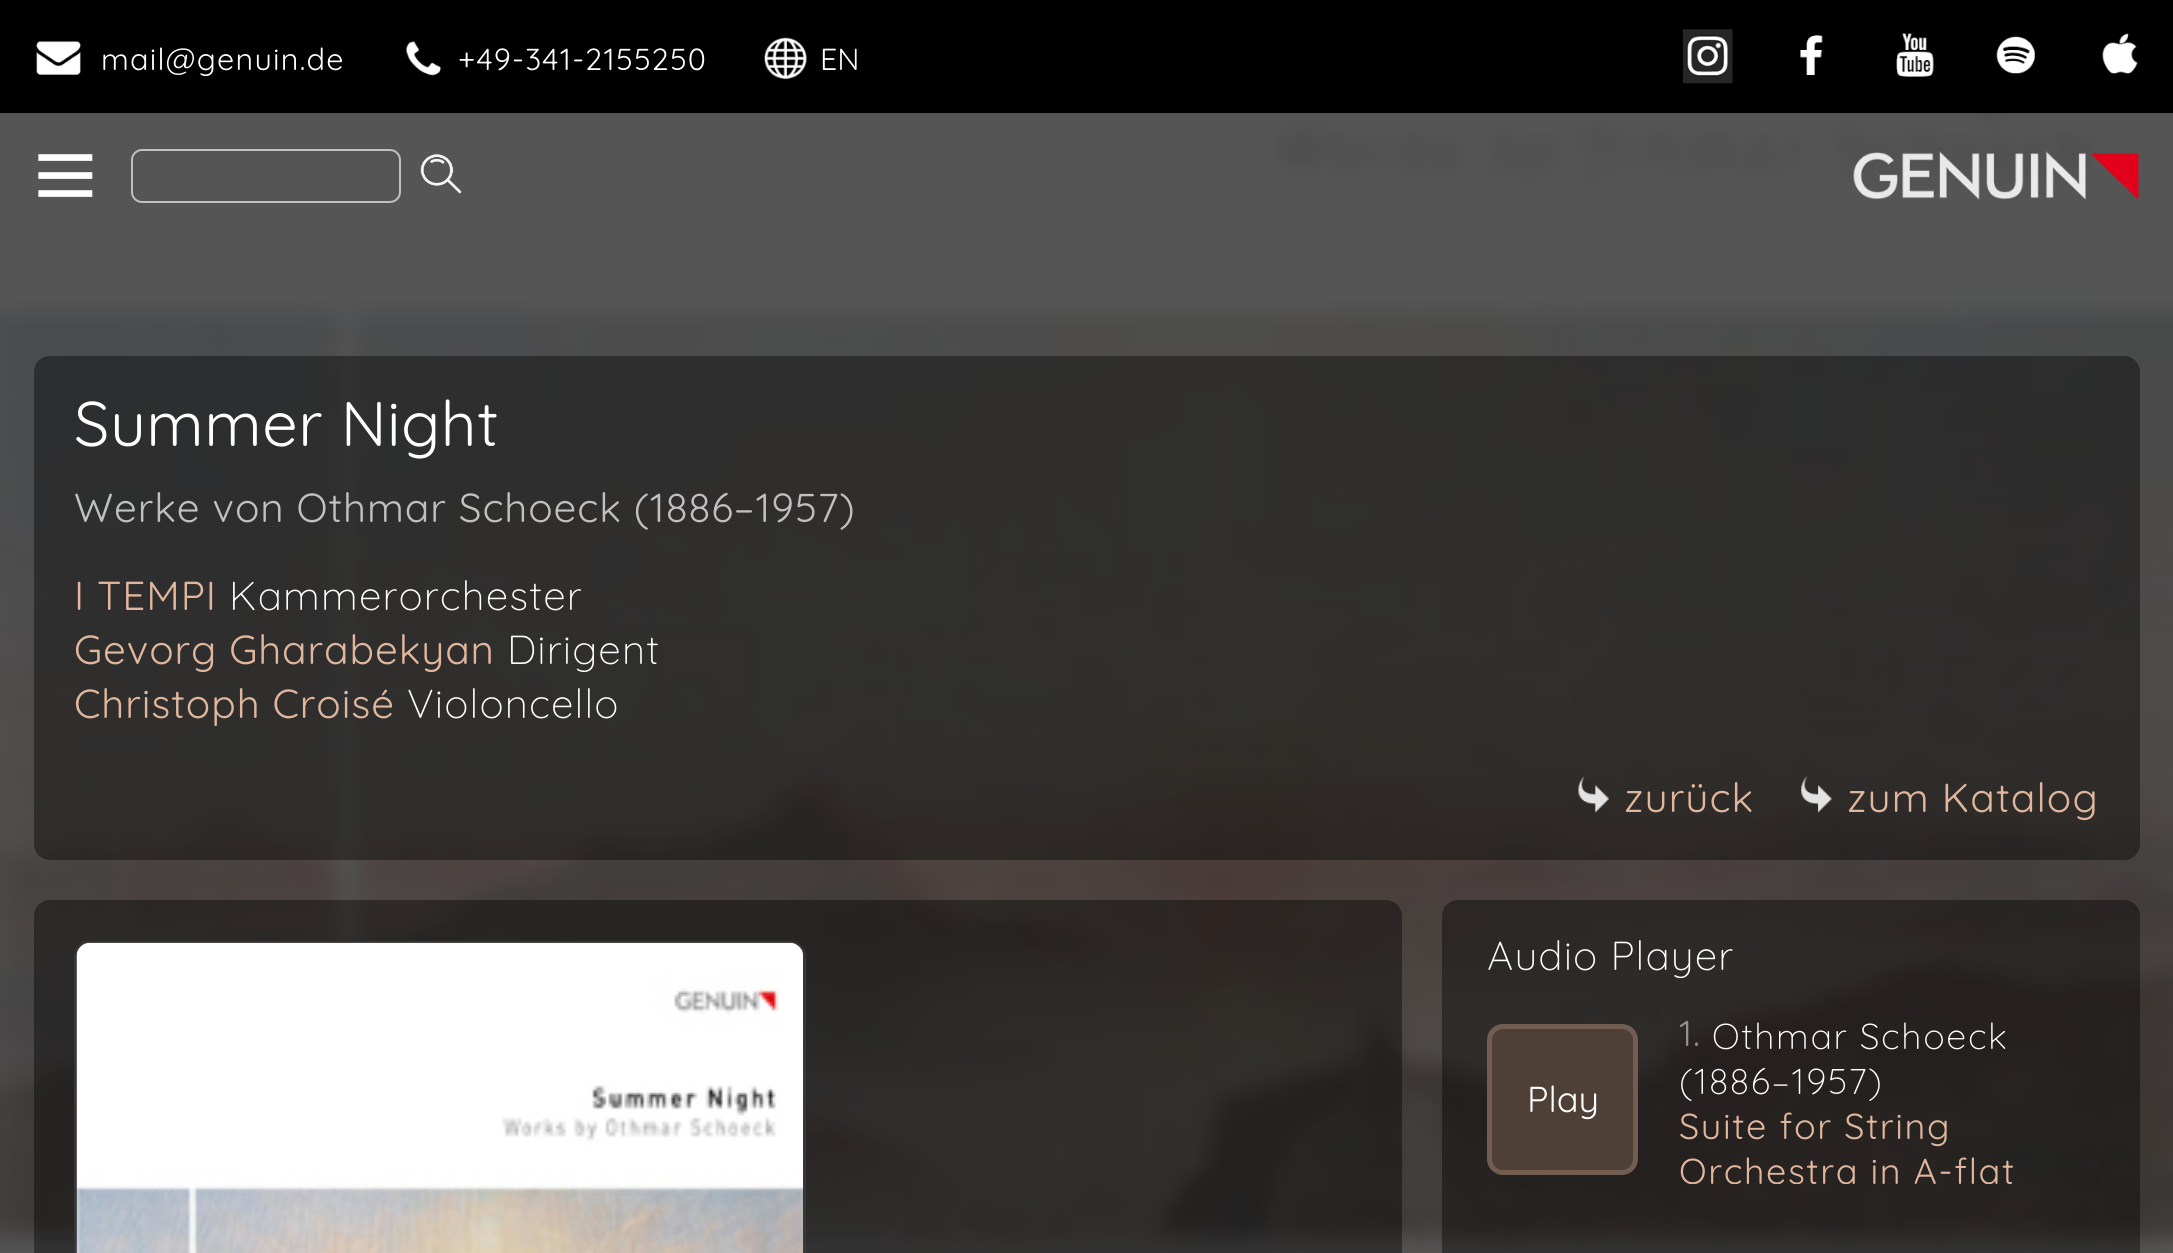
import math
import cairo

surface = cairo.ImageSurface(cairo.FORMAT_RGB24, 2173, 1253)
ctx = cairo.Context(surface)
options = cairo.FontOptions()
options.set_hint_metrics(cairo.HINT_METRICS_OFF)
options.set_hint_style(cairo.HINT_STYLE_NONE)
ctx.set_font_options(options)
ctx.set_miter_limit(4)


def set_color(code):
    ctx.set_source_rgb(*(v / 255 for v in bytes.fromhex(code[-6:])))


def draw_text(x, y, s, family, size, color, bold=False, italic=False):
    ctx.select_font_face(family, cairo.FONT_SLANT_ITALIC if italic else cairo.FONT_SLANT_NORMAL, cairo.FONT_WEIGHT_BOLD if bold else cairo.FONT_WEIGHT_NORMAL)
    ctx.set_font_size(size)
    set_color(color)
    ctx.move_to(x, y)
    ctx.show_text(s)


def draw_spaced(x, y, s, letter, word):
    ctx.move_to(x, y)
    for ch in s:
        ctx.show_text(ch)
        ctx.rel_move_to(letter + word * (ch == ' '), 0)


def fill_rect(x, y, w, h, color):
    set_color(color)
    ctx.rectangle(x, y, w, h)
    ctx.fill()


def rounded_rect(x, y, w, h, r):
    ctx.new_sub_path()
    for i, (u, v) in enumerate([(x + w - r, y + h - r), (x + r, y + h - r), (x + r, y + r), (x + w - r, y + r)]):
        ctx.arc(u, v, r, i * math.pi / 2, (i + 1) * math.pi / 2)
    ctx.close_path()


def draw_image(path, x, y, w, h):
    ctx.save()
    ctx.set_source_surface(cairo.ImageSurface.create_from_png(path), x, y)
    ctx.rectangle(x, y, w, h)
    ctx.fill()
    ctx.restore()


set_color("#ffffff")
ctx.paint()
fill_rect(0, 0, 2173, 113, "#000000")
draw_image("assets/img1.png", 36, 41, 45, 34)
ctx.select_font_face("Quicksand Light")
ctx.set_font_size(30.5)
set_color("#ffffff")
draw_spaced(101, 70, "mail@genuin.de", 1.25, 0)
draw_image("assets/img2.png", 406, 41, 35, 35)
draw_spaced(458, 70, "+49-341-2155250", 1.25, 0)
draw_image("assets/img3.png", 764, 37, 43, 42)
draw_text(820, 70, "EN", "Quicksand Light", 30.5, "#ffffff")
draw_image("assets/img4.png", 1683, 29, 50, 55)
draw_image("assets/img5.png", 1800, 35, 23, 40)
draw_image("assets/img6.png", 1896, 33, 38, 44)
draw_image("assets/img7.png", 1996, 36, 39, 38)
draw_image("assets/img8.png", 2102, 33, 36, 41)
draw_image("assets/img12.png", 0, 113, 2173, 1140)
draw_image("assets/img9.png", 38, 154, 55, 43)
rounded_rect(132, 150, 268, 52, 10)
set_color("#c0c0c0")
ctx.stroke()
draw_image("assets/img10.png", 420, 154, 42, 40)
draw_image("assets/img11.png", 1853, 151, 286, 49)
ctx.set_source_rgba(0, 0, 0, 0.4)
rounded_rect(34, 356, 2106, 504, 16)
ctx.fill()
ctx.set_font_size(63)
set_color("#ffffff")
draw_spaced(74, 446, "Summer Night", 0.5, 0)
ctx.set_font_size(40.5)
set_color("#c0c0c0")
draw_spaced(74, 522, "Werke von Othmar Schoeck (1886–1957)", 0.9, 0)
set_color("#e0b69d")
draw_spaced(74, 610, "I TEMPI", 0.9, 0)
ctx.select_font_face("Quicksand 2 Light")
set_color("#ffffff")
draw_spaced(229, 610, "Kammerorchester", 1.1, 0)
ctx.select_font_face("Quicksand Light")
set_color("#e0b69d")
draw_spaced(74, 664, "Gevorg Gharabekyan", 0.9, 0)
ctx.select_font_face("Quicksand 2 Light")
set_color("#ffffff")
draw_spaced(507, 664, "Dirigent", 1.1, 0)
ctx.select_font_face("Quicksand Light")
set_color("#e0b69d")
draw_spaced(74, 718, "Christoph Croisé", 0.9, 0)
ctx.select_font_face("Quicksand 2 Light")
set_color("#ffffff")
draw_spaced(407, 718, "Violoncello", 1.1, 0)
draw_image("assets/img13.png", 1578, 776, 31, 37)
ctx.select_font_face("Quicksand Light")
set_color("#e0b69d")
draw_spaced(1624, 812, "zurück", 1.1, 0)
draw_image("assets/img14.png", 1801, 776, 31, 37)
draw_spaced(1847, 812, "zum Katalog", 1.1, 0)
ctx.set_source_rgba(0, 0, 0, 0.4)
rounded_rect(34, 900, 1368, 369, 16)
ctx.fill()
rounded_rect(75, 942, 730, 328, 15)
set_color("#383838")
ctx.stroke()
draw_image("assets/img15.png", 76, 942, 728, 311)
ctx.set_source_rgba(0, 0, 0, 0.4)
rounded_rect(1442, 900, 698, 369, 16)
ctx.fill()
ctx.select_font_face("Quicksand 2 Light")
set_color("#ffffff")
draw_spaced(1487, 970, "Audio Player", 1.1, 0)
set_color("#4f4037")
rounded_rect(1489.5, 1026.5, 146, 146, 13.5)
ctx.fill_preserve()
set_color("#735d50")
ctx.set_line_width(5)
ctx.stroke()
draw_text(1527, 1112, "Play", "Quicksand Light", 36, "#ffffff")
set_color("#929292")
draw_spaced(1679, 1046, "1.", 1, 0)
ctx.select_font_face("Quicksand 2 Light")
set_color("#ffffff")
draw_spaced(1712, 1049, "Othmar Schoeck", 1.6, 0)
draw_spaced(1679, 1094, "(1886–1957)", 1.6, 0)
ctx.select_font_face("Quicksand Light")
set_color("#e0b69d")
draw_spaced(1679, 1139, "Suite for String", 1.6, 0)
ctx.save()
ctx.rectangle(1679, 983, 461, 201)
ctx.clip()
draw_spaced(1679, 1184, "Orchestra in A-flat", 1.6, 0)
ctx.restore()
surface.write_to_png("output.png")
